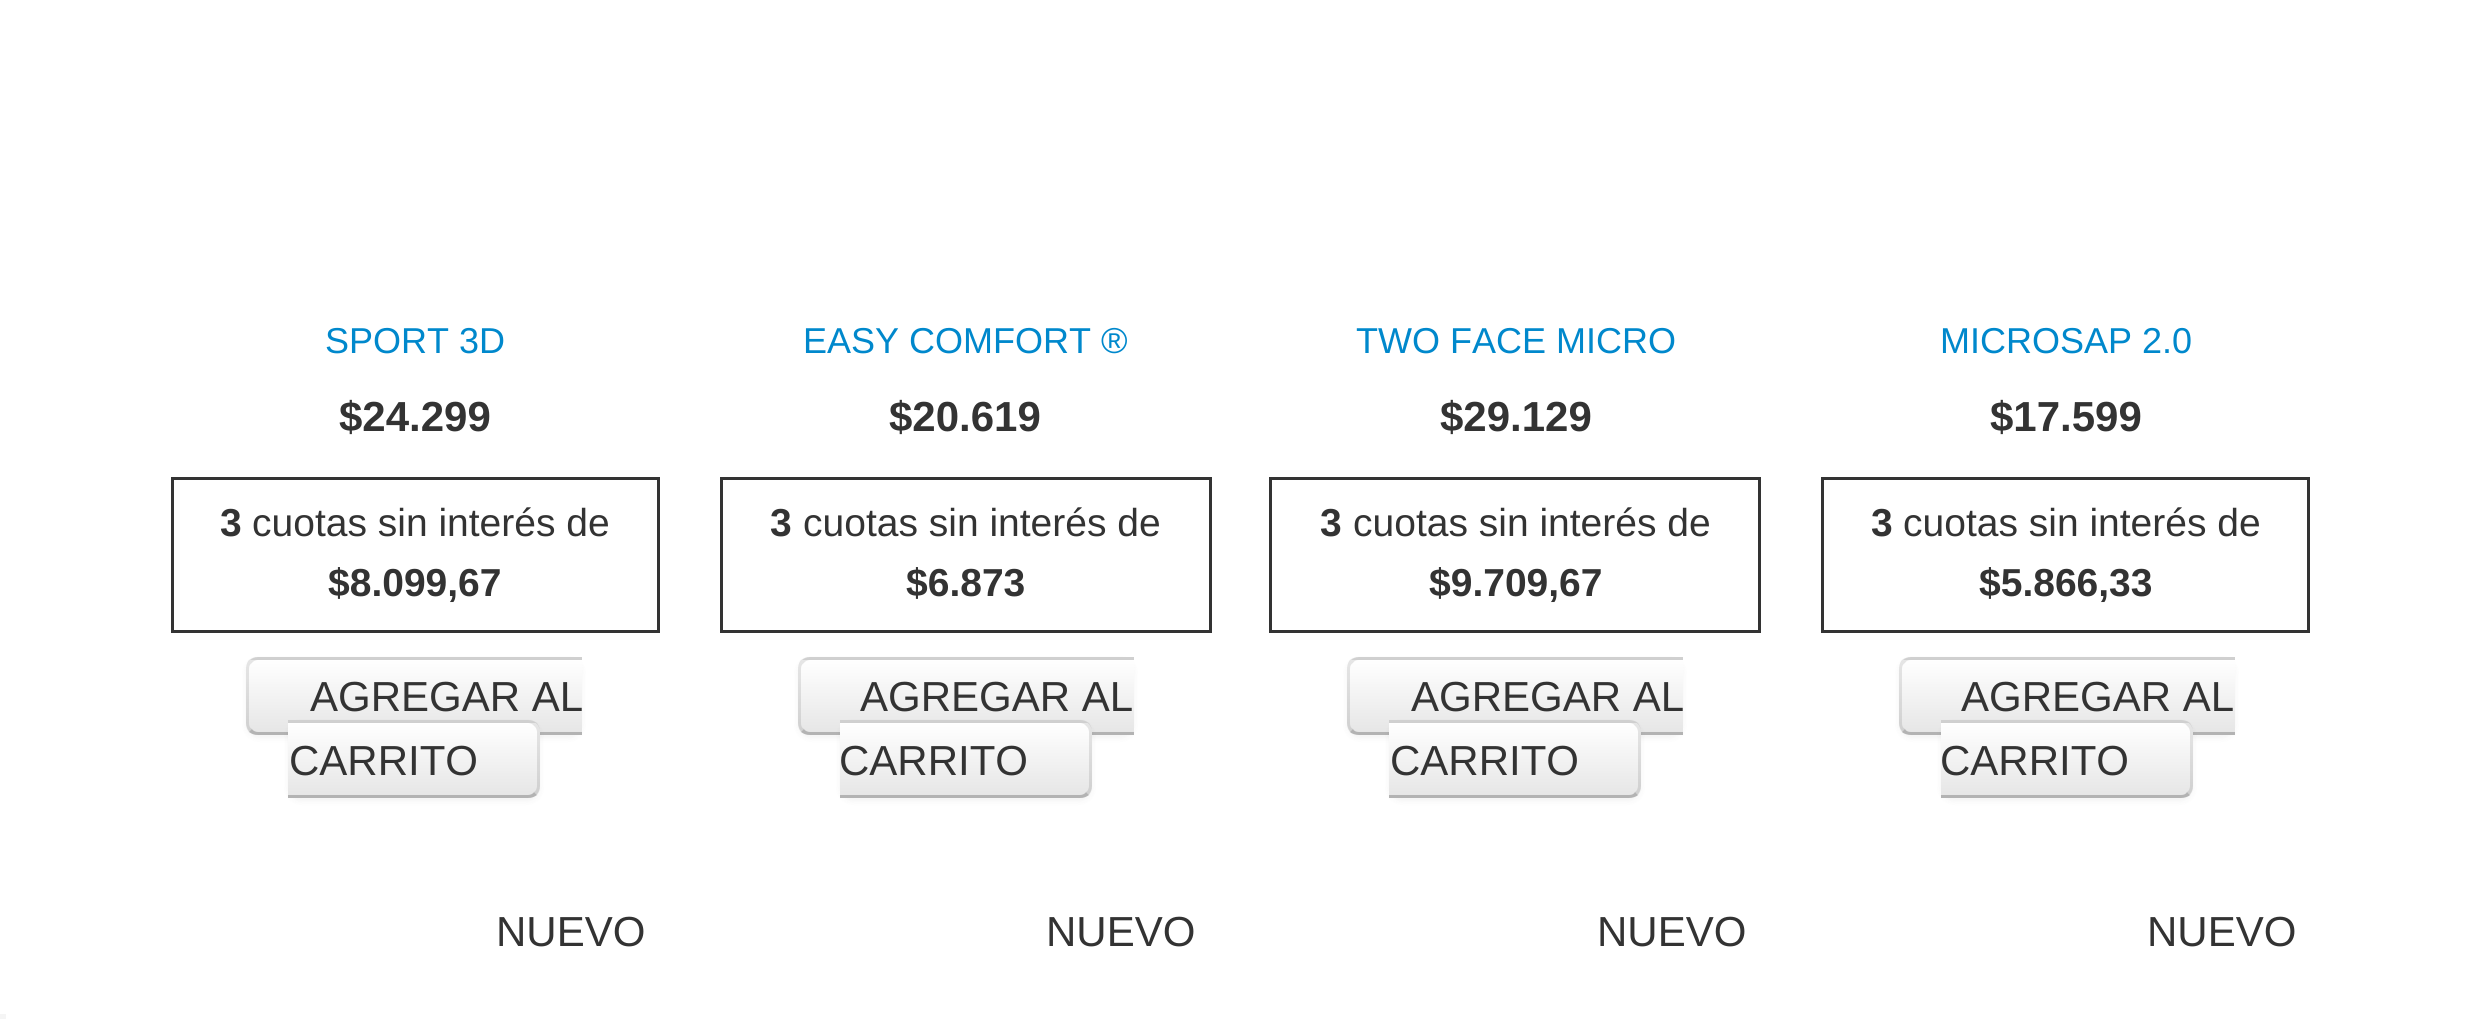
import math
import cairo

surface = cairo.ImageSurface(cairo.FORMAT_RGB24, 2480, 1019)
ctx = cairo.Context(surface)
options = cairo.FontOptions()
options.set_hint_metrics(cairo.HINT_METRICS_OFF)
options.set_hint_style(cairo.HINT_STYLE_NONE)
ctx.set_font_options(options)
ctx.set_miter_limit(4)


def set_color(code):
    ctx.set_source_rgb(*(v / 255 for v in bytes.fromhex(code[-6:])))


def draw_text(x, y, s, family, size, color, bold=False, italic=False):
    ctx.select_font_face(family, cairo.FONT_SLANT_ITALIC if italic else cairo.FONT_SLANT_NORMAL, cairo.FONT_WEIGHT_BOLD if bold else cairo.FONT_WEIGHT_NORMAL)
    ctx.set_font_size(size)
    set_color(color)
    ctx.move_to(x, y)
    ctx.show_text(s)


def fill_rect(x, y, w, h, color):
    set_color(color)
    ctx.rectangle(x, y, w, h)
    ctx.fill()


def rounded_rect(x, y, w, h, r):
    ctx.new_sub_path()
    for i, (u, v) in enumerate([(x + w - r, y + h - r), (x + r, y + h - r), (x + r, y + r), (x + w - r, y + r)]):
        ctx.arc(u, v, r, i * math.pi / 2, (i + 1) * math.pi / 2)
    ctx.close_path()


def draw_shadow(x, y, w, h, r, blur, alpha):
    ctx.push_group_with_content(cairo.CONTENT_ALPHA)
    ctx.set_operator(cairo.OPERATOR_SOURCE)
    for i in range(15, -16, -2):
        e = blur * i / 6
        if min(w, h) + 2 * e > 0:
            ctx.set_source_rgba(0, 0, 0, alpha * math.erfc((i - 1) / 8.5) / 2)
            rounded_rect(x - e, y - e, w + 2 * e, h + 2 * e, max(0, min(r + e + blur * .6, min(w, h) / 2 + e)))
            ctx.fill()
    ctx.mask(ctx.pop_group())


set_color("#ffffff")
ctx.paint()
draw_text(325, 353, "SPORT 3D", "Liberation Sans", 36, "#0088cc")
draw_text(339, 431, "$24.299", "Liberation Sans", 42, "#333333", bold=True)
ctx.rectangle(172.5, 478.5, 486, 153)
ctx.set_line_width(3)
ctx.stroke()
draw_text(220, 536, "3", "Liberation Sans", 39, "#333333", bold=True)
draw_text(252, 536, "cuotas sin interés de", "Liberation Sans", 39, "#333333")
draw_text(328, 596, "$8.099,67", "Liberation Sans", 39, "#333333", bold=True)
set_color("#000000")
draw_shadow(246, 660, 336, 78, 12, 3, 0.05)
ctx.save()
ctx.new_path()
ctx.move_to(258, 657)
ctx.line_to(582, 657)
ctx.line_to(582, 735)
ctx.line_to(258, 735)
ctx.curve_to(251.5, 735, 246, 729.5, 246, 723)
ctx.line_to(246, 669)
ctx.curve_to(246, 662.5, 251.5, 657, 258, 657)
ctx.close_path()
ctx.clip()
gradient = cairo.LinearGradient(416, 660, 416, 732)
gradient.add_color_stop_rgba(0, 1, 1, 1, 1)
gradient.add_color_stop_rgba(1, 0.902, 0.902, 0.902, 1)
ctx.set_source(gradient)
ctx.rectangle(246, 660, 336, 72)
ctx.fill()
ctx.restore()
draw_text(310, 711, "AGREGAR AL", "Liberation Sans", 42, "#333333")
ctx.save()
ctx.new_path()
ctx.move_to(258, 657)
ctx.line_to(582, 657)
ctx.line_to(582, 735)
ctx.line_to(258, 735)
ctx.curve_to(251.5, 735, 246, 729.5, 246, 723)
ctx.line_to(246, 669)
ctx.curve_to(246, 662.5, 251.5, 657, 258, 657)
ctx.close_path()
ctx.clip()
gradient = cairo.LinearGradient(416, 588, 416, 660)
gradient.add_color_stop_rgba(0, 1, 1, 1, 1)
gradient.add_color_stop_rgba(1, 0.902, 0.902, 0.902, 1)
ctx.set_source(gradient)
ctx.rectangle(246, 657, 336, 3)
ctx.fill()
ctx.restore()
ctx.set_source_rgba(0, 0, 0, 0.1)
ctx.new_path()
ctx.move_to(258, 657)
ctx.curve_to(254, 657, 252, 658, 249, 660)
ctx.line_to(252, 663)
ctx.curve_to(253, 661, 256, 660, 258, 660)
ctx.line_to(582, 660)
ctx.line_to(582, 657)
ctx.close_path()
ctx.fill()
set_color("#b3b3b3")
ctx.new_path()
ctx.move_to(582, 735)
ctx.line_to(582, 732)
ctx.line_to(258, 732)
ctx.curve_to(256, 732, 253, 731, 252, 729)
ctx.line_to(249, 732)
ctx.curve_to(252, 734, 254, 735, 258, 735)
ctx.close_path()
ctx.fill()
ctx.set_source_rgba(0, 0, 0, 0.1)
ctx.new_path()
ctx.move_to(246, 669)
ctx.line_to(246, 723)
ctx.curve_to(246, 726, 247, 730, 249, 732)
ctx.line_to(252, 729)
ctx.curve_to(250, 728, 249, 726, 249, 723)
ctx.line_to(249, 669)
ctx.curve_to(249, 666, 250, 664, 252, 663)
ctx.line_to(249, 660)
ctx.curve_to(247, 662, 246, 666, 246, 669)
ctx.close_path()
ctx.fill()
set_color("#000000")
draw_shadow(288, 723, 252, 78, 12, 3, 0.05)
ctx.save()
ctx.new_path()
ctx.move_to(288, 720)
ctx.line_to(528, 720)
ctx.curve_to(534.5, 720, 540, 725.5, 540, 732)
ctx.line_to(540, 786)
ctx.curve_to(540, 792.5, 534.5, 798, 528, 798)
ctx.line_to(288, 798)
ctx.close_path()
ctx.clip()
gradient = cairo.LinearGradient(413, 651, 413, 723)
gradient.add_color_stop_rgba(0, 1, 1, 1, 1)
gradient.add_color_stop_rgba(1, 0.902, 0.902, 0.902, 1)
ctx.set_source(gradient)
ctx.rectangle(288, 720, 252, 3)
ctx.fill()
gradient = cairo.LinearGradient(413, 723, 413, 795)
gradient.add_color_stop_rgba(0, 1, 1, 1, 1)
gradient.add_color_stop_rgba(1, 0.902, 0.902, 0.902, 1)
ctx.set_source(gradient)
ctx.rectangle(288, 723, 252, 72)
ctx.fill()
ctx.restore()
ctx.set_source_rgba(0, 0, 0, 0.1)
ctx.new_path()
ctx.move_to(288, 720)
ctx.line_to(288, 723)
ctx.line_to(528, 723)
ctx.curve_to(530, 723, 533, 724, 534, 726)
ctx.line_to(537, 723)
ctx.curve_to(534, 721, 532, 720, 528, 720)
ctx.close_path()
ctx.fill()
draw_text(289, 775, "CARRITO", "Liberation Sans", 42, "#333333")
ctx.set_source_rgba(0, 0, 0, 0.1)
ctx.new_path()
ctx.move_to(534, 792)
ctx.curve_to(536, 791, 537, 788, 537, 786)
ctx.line_to(537, 732)
ctx.curve_to(537, 730, 536, 727, 534, 726)
ctx.line_to(537, 723)
ctx.curve_to(539, 726, 540, 728, 540, 732)
ctx.line_to(540, 786)
ctx.curve_to(540, 790, 539, 792, 537, 795)
ctx.close_path()
ctx.fill()
set_color("#b3b3b3")
ctx.new_path()
ctx.move_to(288, 795)
ctx.line_to(288, 798)
ctx.line_to(528, 798)
ctx.curve_to(532, 798, 534, 797, 537, 795)
ctx.line_to(534, 792)
ctx.curve_to(533, 794, 530, 795, 528, 795)
ctx.close_path()
ctx.fill()
draw_text(803, 353, "EASY COMFORT ®", "Liberation Sans", 36, "#0088cc")
draw_text(889, 431, "$20.619", "Liberation Sans", 42, "#333333", bold=True)
ctx.rectangle(721.5, 478.5, 489, 153)
ctx.stroke()
draw_text(770, 536, "3", "Liberation Sans", 39, "#333333", bold=True)
draw_text(803, 536, "cuotas sin interés de", "Liberation Sans", 39, "#333333")
draw_text(906, 596, "$6.873", "Liberation Sans", 39, "#333333", bold=True)
set_color("#000000")
draw_shadow(798, 660, 336, 78, 12, 3, 0.05)
ctx.save()
ctx.new_path()
ctx.move_to(810, 657)
ctx.line_to(1134, 657)
ctx.line_to(1134, 735)
ctx.line_to(810, 735)
ctx.curve_to(803.5, 735, 798, 729.5, 798, 723)
ctx.line_to(798, 669)
ctx.curve_to(798, 662.5, 803.5, 657, 810, 657)
ctx.close_path()
ctx.clip()
gradient = cairo.LinearGradient(968, 660, 968, 732)
gradient.add_color_stop_rgba(0, 1, 1, 1, 1)
gradient.add_color_stop_rgba(1, 0.902, 0.902, 0.902, 1)
ctx.set_source(gradient)
ctx.rectangle(798, 660, 336, 72)
ctx.fill()
ctx.restore()
draw_text(860, 711, "AGREGAR AL", "Liberation Sans", 42, "#333333")
ctx.save()
ctx.new_path()
ctx.move_to(810, 657)
ctx.line_to(1134, 657)
ctx.line_to(1134, 735)
ctx.line_to(810, 735)
ctx.curve_to(803.5, 735, 798, 729.5, 798, 723)
ctx.line_to(798, 669)
ctx.curve_to(798, 662.5, 803.5, 657, 810, 657)
ctx.close_path()
ctx.clip()
gradient = cairo.LinearGradient(968, 588, 968, 660)
gradient.add_color_stop_rgba(0, 1, 1, 1, 1)
gradient.add_color_stop_rgba(1, 0.902, 0.902, 0.902, 1)
ctx.set_source(gradient)
ctx.rectangle(798, 657, 336, 3)
ctx.fill()
ctx.restore()
ctx.set_source_rgba(0, 0, 0, 0.1)
ctx.new_path()
ctx.move_to(810, 657)
ctx.curve_to(806, 657, 804, 658, 801, 660)
ctx.line_to(804, 663)
ctx.curve_to(805, 661, 808, 660, 810, 660)
ctx.line_to(1134, 660)
ctx.line_to(1134, 657)
ctx.close_path()
ctx.fill()
set_color("#b3b3b3")
ctx.new_path()
ctx.move_to(1134, 735)
ctx.line_to(1134, 732)
ctx.line_to(810, 732)
ctx.curve_to(808, 732, 805, 731, 804, 729)
ctx.line_to(801, 732)
ctx.curve_to(804, 734, 806, 735, 810, 735)
ctx.close_path()
ctx.fill()
ctx.set_source_rgba(0, 0, 0, 0.1)
ctx.new_path()
ctx.move_to(798, 669)
ctx.line_to(798, 723)
ctx.curve_to(798, 726, 799, 730, 801, 732)
ctx.line_to(804, 729)
ctx.curve_to(802, 728, 801, 726, 801, 723)
ctx.line_to(801, 669)
ctx.curve_to(801, 666, 802, 664, 804, 663)
ctx.line_to(801, 660)
ctx.curve_to(799, 662, 798, 666, 798, 669)
ctx.close_path()
ctx.fill()
set_color("#000000")
draw_shadow(840, 723, 252, 78, 12, 3, 0.05)
ctx.save()
ctx.new_path()
ctx.move_to(840, 720)
ctx.line_to(1080, 720)
ctx.curve_to(1086.5, 720, 1092, 725.5, 1092, 732)
ctx.line_to(1092, 786)
ctx.curve_to(1092, 792.5, 1086.5, 798, 1080, 798)
ctx.line_to(840, 798)
ctx.close_path()
ctx.clip()
gradient = cairo.LinearGradient(965, 651, 965, 723)
gradient.add_color_stop_rgba(0, 1, 1, 1, 1)
gradient.add_color_stop_rgba(1, 0.902, 0.902, 0.902, 1)
ctx.set_source(gradient)
ctx.rectangle(840, 720, 252, 3)
ctx.fill()
gradient = cairo.LinearGradient(965, 723, 965, 795)
gradient.add_color_stop_rgba(0, 1, 1, 1, 1)
gradient.add_color_stop_rgba(1, 0.902, 0.902, 0.902, 1)
ctx.set_source(gradient)
ctx.rectangle(840, 723, 252, 72)
ctx.fill()
ctx.restore()
ctx.set_source_rgba(0, 0, 0, 0.1)
ctx.new_path()
ctx.move_to(840, 720)
ctx.line_to(840, 723)
ctx.line_to(1080, 723)
ctx.curve_to(1082, 723, 1085, 724, 1086, 726)
ctx.line_to(1089, 723)
ctx.curve_to(1086, 721, 1084, 720, 1080, 720)
ctx.close_path()
ctx.fill()
draw_text(839, 775, "CARRITO", "Liberation Sans", 42, "#333333")
ctx.set_source_rgba(0, 0, 0, 0.1)
ctx.new_path()
ctx.move_to(1086, 792)
ctx.curve_to(1088, 791, 1089, 788, 1089, 786)
ctx.line_to(1089, 732)
ctx.curve_to(1089, 730, 1088, 727, 1086, 726)
ctx.line_to(1089, 723)
ctx.curve_to(1091, 726, 1092, 728, 1092, 732)
ctx.line_to(1092, 786)
ctx.curve_to(1092, 790, 1091, 792, 1089, 795)
ctx.close_path()
ctx.fill()
set_color("#b3b3b3")
ctx.new_path()
ctx.move_to(840, 795)
ctx.line_to(840, 798)
ctx.line_to(1080, 798)
ctx.curve_to(1084, 798, 1086, 797, 1089, 795)
ctx.line_to(1086, 792)
ctx.curve_to(1085, 794, 1082, 795, 1080, 795)
ctx.close_path()
ctx.fill()
draw_text(1356, 353, "TWO FACE MICRO", "Liberation Sans", 36, "#0088cc")
draw_text(1440, 431, "$29.129", "Liberation Sans", 42, "#333333", bold=True)
ctx.rectangle(1270.5, 478.5, 489, 153)
ctx.stroke()
draw_text(1320, 536, "3", "Liberation Sans", 39, "#333333", bold=True)
draw_text(1353, 536, "cuotas sin interés de", "Liberation Sans", 39, "#333333")
draw_text(1429, 596, "$9.709,67", "Liberation Sans", 39, "#333333", bold=True)
set_color("#000000")
draw_shadow(1347, 660, 336, 78, 12, 3, 0.05)
ctx.save()
ctx.new_path()
ctx.move_to(1359, 657)
ctx.line_to(1683, 657)
ctx.line_to(1683, 735)
ctx.line_to(1359, 735)
ctx.curve_to(1352.5, 735, 1347, 729.5, 1347, 723)
ctx.line_to(1347, 669)
ctx.curve_to(1347, 662.5, 1352.5, 657, 1359, 657)
ctx.close_path()
ctx.clip()
gradient = cairo.LinearGradient(1517, 660, 1517, 732)
gradient.add_color_stop_rgba(0, 1, 1, 1, 1)
gradient.add_color_stop_rgba(1, 0.902, 0.902, 0.902, 1)
ctx.set_source(gradient)
ctx.rectangle(1347, 660, 336, 72)
ctx.fill()
ctx.restore()
draw_text(1411, 711, "AGREGAR AL", "Liberation Sans", 42, "#333333")
ctx.save()
ctx.new_path()
ctx.move_to(1359, 657)
ctx.line_to(1683, 657)
ctx.line_to(1683, 735)
ctx.line_to(1359, 735)
ctx.curve_to(1352.5, 735, 1347, 729.5, 1347, 723)
ctx.line_to(1347, 669)
ctx.curve_to(1347, 662.5, 1352.5, 657, 1359, 657)
ctx.close_path()
ctx.clip()
gradient = cairo.LinearGradient(1517, 588, 1517, 660)
gradient.add_color_stop_rgba(0, 1, 1, 1, 1)
gradient.add_color_stop_rgba(1, 0.902, 0.902, 0.902, 1)
ctx.set_source(gradient)
ctx.rectangle(1347, 657, 336, 3)
ctx.fill()
ctx.restore()
ctx.set_source_rgba(0, 0, 0, 0.1)
ctx.new_path()
ctx.move_to(1359, 657)
ctx.curve_to(1356, 657, 1352, 658, 1350, 660)
ctx.line_to(1353, 663)
ctx.curve_to(1354, 661, 1356, 660, 1359, 660)
ctx.line_to(1683, 660)
ctx.line_to(1683, 657)
ctx.close_path()
ctx.fill()
set_color("#b3b3b3")
ctx.new_path()
ctx.move_to(1683, 735)
ctx.line_to(1683, 732)
ctx.line_to(1359, 732)
ctx.curve_to(1356, 732, 1354, 731, 1353, 729)
ctx.line_to(1350, 732)
ctx.curve_to(1352, 734, 1356, 735, 1359, 735)
ctx.close_path()
ctx.fill()
ctx.set_source_rgba(0, 0, 0, 0.1)
ctx.new_path()
ctx.move_to(1347, 669)
ctx.line_to(1347, 723)
ctx.curve_to(1347, 726, 1348, 730, 1350, 732)
ctx.line_to(1353, 729)
ctx.curve_to(1351, 728, 1350, 726, 1350, 723)
ctx.line_to(1350, 669)
ctx.curve_to(1350, 666, 1351, 664, 1353, 663)
ctx.line_to(1350, 660)
ctx.curve_to(1348, 662, 1347, 666, 1347, 669)
ctx.close_path()
ctx.fill()
set_color("#000000")
draw_shadow(1389, 723, 252, 78, 12, 3, 0.05)
ctx.save()
ctx.new_path()
ctx.move_to(1389, 720)
ctx.line_to(1629, 720)
ctx.curve_to(1635.5, 720, 1641, 725.5, 1641, 732)
ctx.line_to(1641, 786)
ctx.curve_to(1641, 792.5, 1635.5, 798, 1629, 798)
ctx.line_to(1389, 798)
ctx.close_path()
ctx.clip()
gradient = cairo.LinearGradient(1514, 651, 1514, 723)
gradient.add_color_stop_rgba(0, 1, 1, 1, 1)
gradient.add_color_stop_rgba(1, 0.902, 0.902, 0.902, 1)
ctx.set_source(gradient)
ctx.rectangle(1389, 720, 252, 3)
ctx.fill()
gradient = cairo.LinearGradient(1514, 723, 1514, 795)
gradient.add_color_stop_rgba(0, 1, 1, 1, 1)
gradient.add_color_stop_rgba(1, 0.902, 0.902, 0.902, 1)
ctx.set_source(gradient)
ctx.rectangle(1389, 723, 252, 72)
ctx.fill()
ctx.restore()
ctx.set_source_rgba(0, 0, 0, 0.1)
ctx.new_path()
ctx.move_to(1389, 720)
ctx.line_to(1389, 723)
ctx.line_to(1629, 723)
ctx.curve_to(1632, 723, 1634, 724, 1635, 726)
ctx.line_to(1638, 723)
ctx.curve_to(1636, 721, 1632, 720, 1629, 720)
ctx.close_path()
ctx.fill()
draw_text(1390, 775, "CARRITO", "Liberation Sans", 42, "#333333")
ctx.set_source_rgba(0, 0, 0, 0.1)
ctx.new_path()
ctx.move_to(1635, 792)
ctx.curve_to(1637, 791, 1638, 788, 1638, 786)
ctx.line_to(1638, 732)
ctx.curve_to(1638, 730, 1637, 727, 1635, 726)
ctx.line_to(1638, 723)
ctx.curve_to(1640, 726, 1641, 728, 1641, 732)
ctx.line_to(1641, 786)
ctx.curve_to(1641, 790, 1640, 792, 1638, 795)
ctx.close_path()
ctx.fill()
set_color("#b3b3b3")
ctx.new_path()
ctx.move_to(1389, 795)
ctx.line_to(1389, 798)
ctx.line_to(1629, 798)
ctx.curve_to(1632, 798, 1636, 797, 1638, 795)
ctx.line_to(1635, 792)
ctx.curve_to(1634, 794, 1632, 795, 1629, 795)
ctx.close_path()
ctx.fill()
draw_text(1940, 353, "MICROSAP 2.0", "Liberation Sans", 36, "#0088cc")
draw_text(1990, 431, "$17.599", "Liberation Sans", 42, "#333333", bold=True)
ctx.rectangle(1822.5, 478.5, 486, 153)
ctx.stroke()
draw_text(1871, 536, "3", "Liberation Sans", 39, "#333333", bold=True)
draw_text(1903, 536, "cuotas sin interés de", "Liberation Sans", 39, "#333333")
draw_text(1979, 596, "$5.866,33", "Liberation Sans", 39, "#333333", bold=True)
set_color("#000000")
draw_shadow(1899, 660, 336, 78, 12, 3, 0.05)
ctx.save()
ctx.new_path()
ctx.move_to(1911, 657)
ctx.line_to(2235, 657)
ctx.line_to(2235, 735)
ctx.line_to(1911, 735)
ctx.curve_to(1904.5, 735, 1899, 729.5, 1899, 723)
ctx.line_to(1899, 669)
ctx.curve_to(1899, 662.5, 1904.5, 657, 1911, 657)
ctx.close_path()
ctx.clip()
gradient = cairo.LinearGradient(2069, 660, 2069, 732)
gradient.add_color_stop_rgba(0, 1, 1, 1, 1)
gradient.add_color_stop_rgba(1, 0.902, 0.902, 0.902, 1)
ctx.set_source(gradient)
ctx.rectangle(1899, 660, 336, 72)
ctx.fill()
ctx.restore()
draw_text(1961, 711, "AGREGAR AL", "Liberation Sans", 42, "#333333")
ctx.save()
ctx.new_path()
ctx.move_to(1911, 657)
ctx.line_to(2235, 657)
ctx.line_to(2235, 735)
ctx.line_to(1911, 735)
ctx.curve_to(1904.5, 735, 1899, 729.5, 1899, 723)
ctx.line_to(1899, 669)
ctx.curve_to(1899, 662.5, 1904.5, 657, 1911, 657)
ctx.close_path()
ctx.clip()
gradient = cairo.LinearGradient(2069, 588, 2069, 660)
gradient.add_color_stop_rgba(0, 1, 1, 1, 1)
gradient.add_color_stop_rgba(1, 0.902, 0.902, 0.902, 1)
ctx.set_source(gradient)
ctx.rectangle(1899, 657, 336, 3)
ctx.fill()
ctx.restore()
ctx.set_source_rgba(0, 0, 0, 0.1)
ctx.new_path()
ctx.move_to(1911, 657)
ctx.curve_to(1908, 657, 1904, 658, 1902, 660)
ctx.line_to(1905, 663)
ctx.curve_to(1906, 661, 1908, 660, 1911, 660)
ctx.line_to(2235, 660)
ctx.line_to(2235, 657)
ctx.close_path()
ctx.fill()
set_color("#b3b3b3")
ctx.new_path()
ctx.move_to(2235, 735)
ctx.line_to(2235, 732)
ctx.line_to(1911, 732)
ctx.curve_to(1908, 732, 1906, 731, 1905, 729)
ctx.line_to(1902, 732)
ctx.curve_to(1904, 734, 1908, 735, 1911, 735)
ctx.close_path()
ctx.fill()
ctx.set_source_rgba(0, 0, 0, 0.1)
ctx.new_path()
ctx.move_to(1899, 669)
ctx.line_to(1899, 723)
ctx.curve_to(1899, 726, 1900, 730, 1902, 732)
ctx.line_to(1905, 729)
ctx.curve_to(1903, 728, 1902, 726, 1902, 723)
ctx.line_to(1902, 669)
ctx.curve_to(1902, 666, 1903, 664, 1905, 663)
ctx.line_to(1902, 660)
ctx.curve_to(1900, 662, 1899, 666, 1899, 669)
ctx.close_path()
ctx.fill()
set_color("#000000")
draw_shadow(1941, 723, 252, 78, 12, 3, 0.05)
ctx.save()
ctx.new_path()
ctx.move_to(1941, 720)
ctx.line_to(2181, 720)
ctx.curve_to(2187.5, 720, 2193, 725.5, 2193, 732)
ctx.line_to(2193, 786)
ctx.curve_to(2193, 792.5, 2187.5, 798, 2181, 798)
ctx.line_to(1941, 798)
ctx.close_path()
ctx.clip()
gradient = cairo.LinearGradient(2066, 651, 2066, 723)
gradient.add_color_stop_rgba(0, 1, 1, 1, 1)
gradient.add_color_stop_rgba(1, 0.902, 0.902, 0.902, 1)
ctx.set_source(gradient)
ctx.rectangle(1941, 720, 252, 3)
ctx.fill()
gradient = cairo.LinearGradient(2066, 723, 2066, 795)
gradient.add_color_stop_rgba(0, 1, 1, 1, 1)
gradient.add_color_stop_rgba(1, 0.902, 0.902, 0.902, 1)
ctx.set_source(gradient)
ctx.rectangle(1941, 723, 252, 72)
ctx.fill()
ctx.restore()
ctx.set_source_rgba(0, 0, 0, 0.1)
ctx.new_path()
ctx.move_to(1941, 720)
ctx.line_to(1941, 723)
ctx.line_to(2181, 723)
ctx.curve_to(2184, 723, 2186, 724, 2187, 726)
ctx.line_to(2190, 723)
ctx.curve_to(2188, 721, 2184, 720, 2181, 720)
ctx.close_path()
ctx.fill()
draw_text(1940, 775, "CARRITO", "Liberation Sans", 42, "#333333")
ctx.set_source_rgba(0, 0, 0, 0.1)
ctx.new_path()
ctx.move_to(2187, 792)
ctx.curve_to(2189, 791, 2190, 788, 2190, 786)
ctx.line_to(2190, 732)
ctx.curve_to(2190, 730, 2189, 727, 2187, 726)
ctx.line_to(2190, 723)
ctx.curve_to(2192, 726, 2193, 728, 2193, 732)
ctx.line_to(2193, 786)
ctx.curve_to(2193, 790, 2192, 792, 2190, 795)
ctx.close_path()
ctx.fill()
set_color("#b3b3b3")
ctx.new_path()
ctx.move_to(1941, 795)
ctx.line_to(1941, 798)
ctx.line_to(2181, 798)
ctx.curve_to(2184, 798, 2188, 797, 2190, 795)
ctx.line_to(2187, 792)
ctx.curve_to(2186, 794, 2184, 795, 2181, 795)
ctx.close_path()
ctx.fill()
draw_text(496, 946, "NUEVO", "Liberation Sans", 42, "#333333")
draw_text(1046, 946, "NUEVO", "Liberation Sans", 42, "#333333")
draw_text(1597, 946, "NUEVO", "Liberation Sans", 42, "#333333")
draw_text(2147, 946, "NUEVO", "Liberation Sans", 42, "#333333")
fill_rect(0, 1014, 6, 5, "#f5f5f5")
surface.write_to_png("output.png")
